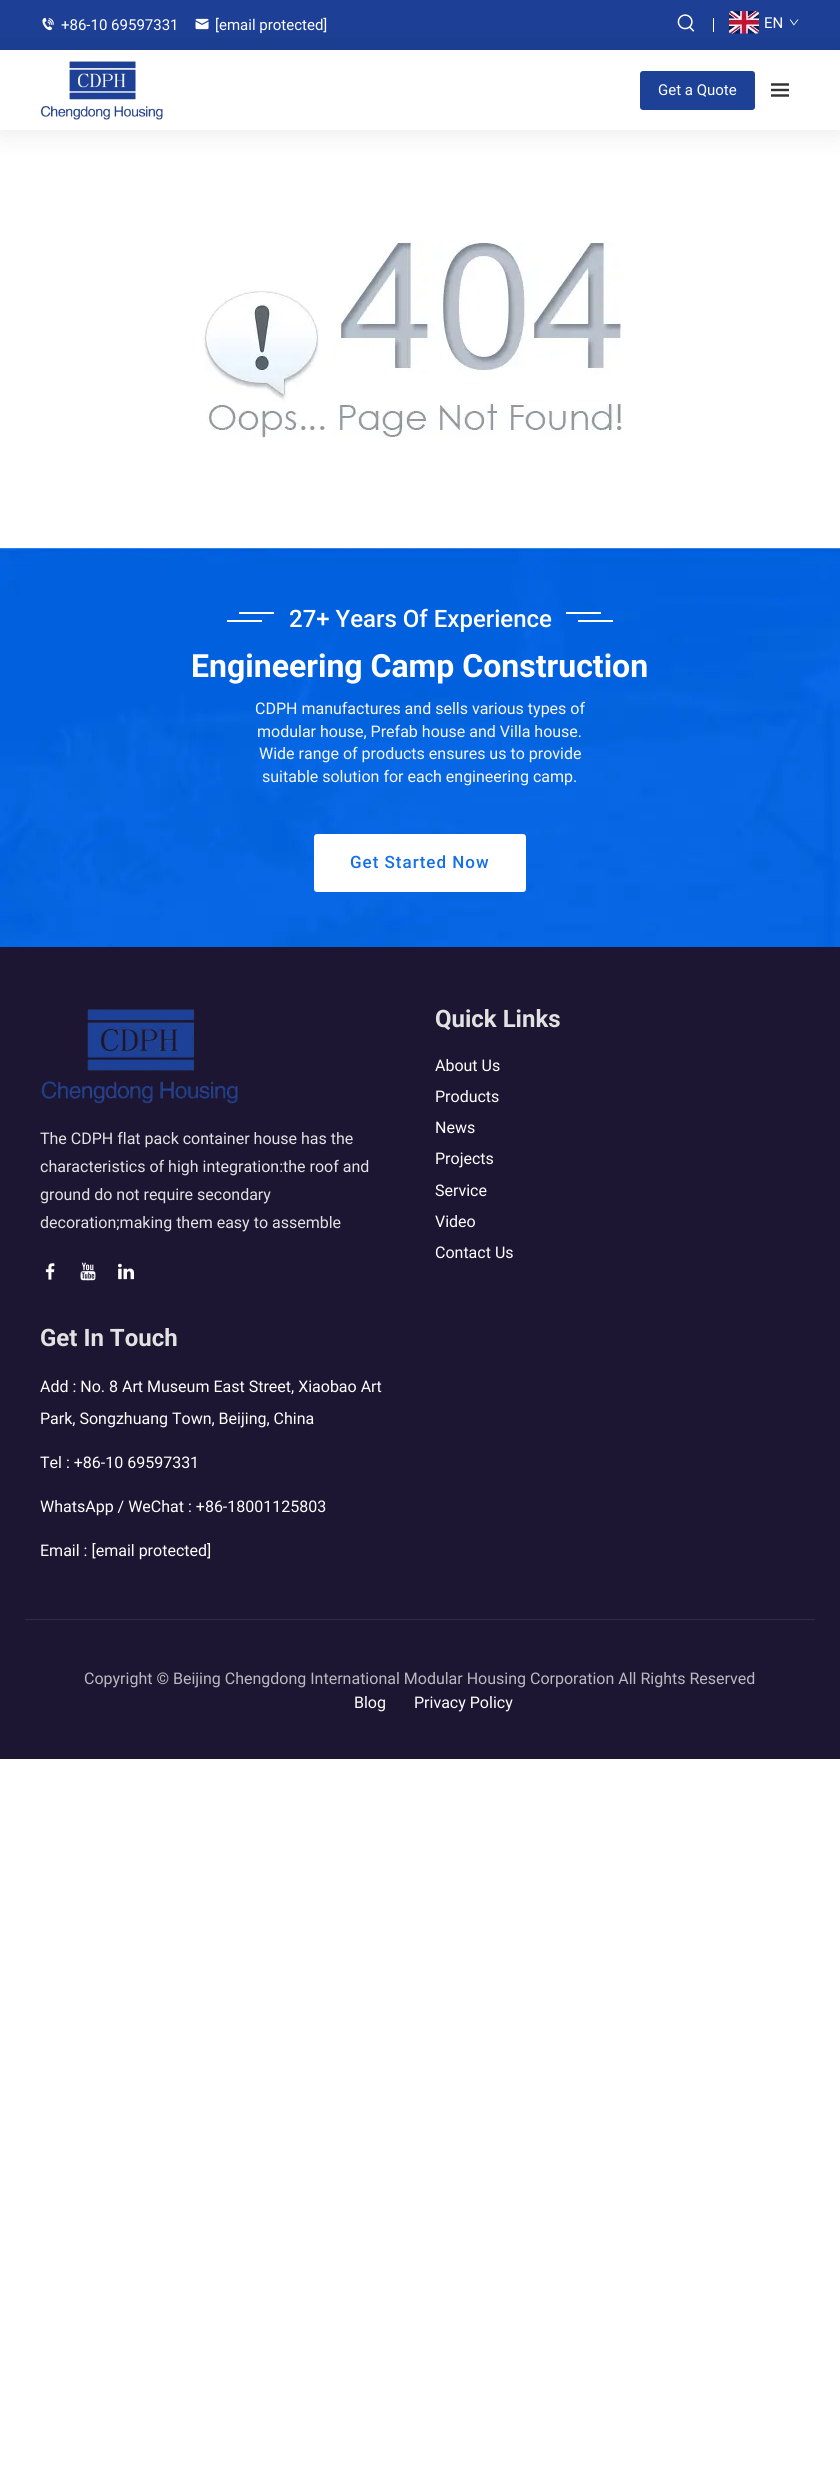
import math
import cairo

surface = cairo.ImageSurface(cairo.FORMAT_RGB24, 840, 2466)
ctx = cairo.Context(surface)
options = cairo.FontOptions()
options.set_hint_metrics(cairo.HINT_METRICS_OFF)
options.set_hint_style(cairo.HINT_STYLE_NONE)
ctx.set_font_options(options)
ctx.set_miter_limit(4)


def set_color(code):
    ctx.set_source_rgb(*(v / 255 for v in bytes.fromhex(code[-6:])))


def draw_text(x, y, s, family, size, color, bold=False, italic=False):
    ctx.select_font_face(family, cairo.FONT_SLANT_ITALIC if italic else cairo.FONT_SLANT_NORMAL, cairo.FONT_WEIGHT_BOLD if bold else cairo.FONT_WEIGHT_NORMAL)
    ctx.set_font_size(size)
    set_color(color)
    ctx.move_to(x, y)
    ctx.show_text(s)


def draw_spaced(x, y, s, letter, word):
    ctx.move_to(x, y)
    for ch in s:
        ctx.show_text(ch)
        ctx.rel_move_to(letter + word * (ch == ' '), 0)


def fill_rect(x, y, w, h, color):
    set_color(color)
    ctx.rectangle(x, y, w, h)
    ctx.fill()


def rounded_rect(x, y, w, h, r):
    ctx.new_sub_path()
    for i, (u, v) in enumerate([(x + w - r, y + h - r), (x + r, y + h - r), (x + r, y + r), (x + w - r, y + r)]):
        ctx.arc(u, v, r, i * math.pi / 2, (i + 1) * math.pi / 2)
    ctx.close_path()


def draw_shadow(x, y, w, h, r, blur, alpha):
    ctx.push_group_with_content(cairo.CONTENT_ALPHA)
    ctx.set_operator(cairo.OPERATOR_SOURCE)
    for i in range(15, -16, -2):
        e = blur * i / 6
        if min(w, h) + 2 * e > 0:
            ctx.set_source_rgba(0, 0, 0, alpha * math.erfc((i - 1) / 8.5) / 2)
            rounded_rect(x - e, y - e, w + 2 * e, h + 2 * e, max(0, min(r + e + blur * .6, min(w, h) / 2 + e)))
            ctx.fill()
    ctx.mask(ctx.pop_group())


def draw_image(path, x, y, w, h):
    ctx.save()
    ctx.set_source_surface(cairo.ImageSurface.create_from_png(path), x, y)
    ctx.rectangle(x, y, w, h)
    ctx.fill()
    ctx.restore()


set_color("#ffffff")
ctx.paint()
fill_rect(0, 0, 840, 50, "#1d4096")
ctx.save()
ctx.set_fill_rule(cairo.FILL_RULE_EVEN_ODD)
ctx.new_path()
ctx.move_to(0, 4)
ctx.line_to(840, 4)
ctx.line_to(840, 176)
ctx.line_to(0, 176)
ctx.close_path()
ctx.move_to(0, 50)
ctx.line_to(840, 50)
ctx.line_to(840, 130)
ctx.line_to(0, 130)
ctx.close_path()
ctx.clip()
set_color("#000000")
draw_shadow(0, 50, 840, 80, 0, 15, 0.1)
ctx.restore()
draw_image("assets/img1.png", 42, 17, 12, 14)
draw_text(61, 30, "+86-10 69597331", "Roboto", 15, "#ffffff")
draw_image("assets/img2.png", 195, 18, 14, 12)
draw_text(215, 30, "[email protected]", "Roboto", 15, "#ffffff")
draw_image("assets/img3.png", 677, 14, 18, 18)
fill_rect(713, 18, 1, 14, "#ffffff")
draw_image("assets/img4.png", 729, 11, 30, 23)
draw_text(764, 28, "EN", "Roboto", 15, "#ffffff")
draw_image("assets/img5.png", 789, 19, 10, 7)
draw_image("assets/img6.png", 40, 61, 123, 59)
set_color("#1d4197")
rounded_rect(640, 71, 115, 39, 3)
ctx.fill()
draw_text(658, 95, "Get a Quote", "Roboto", 15, "#ffffff")
draw_image("assets/img7.png", 771, 83, 18, 14)
draw_image("assets/img8.png", 203, 242, 421, 196)
draw_image("assets/img9.png", 0, 548, 840, 399)
fill_rect(239, 612, 35, 2, "#ffffff")
draw_text(289, 627, "27+ Years Of Experience", "Roboto Medium", 24, "#ffffff")
fill_rect(566, 612, 35, 2, "#ffffff")
fill_rect(578, 620, 35, 2, "#ffffff")
fill_rect(227, 620, 35, 2, "#ffffff")
draw_text(191, 677, "Engineering Camp Construction", "Roboto", 32, "#ffffff", bold=True)
draw_text(255, 714, "CDPH manufactures and sells various types of", "Roboto", 16, "#f8f8f8")
draw_text(257, 737, "modular house, Prefab house and Villa house.", "Roboto", 16, "#f8f8f8")
draw_text(259, 759, "Wide range of products ensures us to provide", "Roboto", 16, "#f8f8f8")
draw_text(262, 782, "suitable solution for each engineering camp.", "Roboto", 16, "#f8f8f8")
set_color("#ffffff")
rounded_rect(314, 834, 212, 58, 3)
ctx.fill()
ctx.select_font_face("Roboto Medium")
ctx.set_font_size(17)
set_color("#156fe9")
draw_spaced(350, 868, "Get Started Now", 1, 0)
fill_rect(0, 947, 840, 812, "#1c1632")
draw_image("assets/img10.png", 41, 1009, 197, 95)
draw_text(40, 1144, "The CDPH flat pack container house has the", "Roboto", 16, "#e2e2e2")
draw_text(40, 1172, "characteristics of high integration:the roof and", "Roboto", 16, "#e2e2e2")
draw_text(40, 1200, "ground do not require secondary", "Roboto", 16, "#e2e2e2")
draw_text(40, 1228, "decoration;making them easy to assemble", "Roboto", 16, "#e2e2e2")
draw_image("assets/img11.png", 45, 1263, 10, 17)
draw_image("assets/img12.png", 80, 1262, 16, 19)
draw_image("assets/img13.png", 118, 1263, 17, 17)
draw_text(435, 1027, "Quick Links", "Roboto", 24, "#e2e2e2", bold=True)
draw_text(435, 1071, "About Us", "Roboto", 16, "#ffffff")
draw_text(435, 1102, "Products", "Roboto", 16, "#ffffff")
draw_text(435, 1133, "News", "Roboto", 16, "#ffffff")
draw_text(435, 1164, "Projects", "Roboto", 16, "#ffffff")
draw_text(435, 1196, "Service", "Roboto", 16, "#ffffff")
draw_text(435, 1227, "Video", "Roboto", 16, "#ffffff")
draw_text(435, 1258, "Contact Us", "Roboto", 16, "#ffffff")
draw_text(40, 1346, "Get In Touch", "Roboto", 24, "#e2e2e2", bold=True)
draw_text(40, 1392, "Add : No. 8 Art Museum East Street, Xiaobao Art", "Roboto", 16, "#ffffff")
draw_text(40, 1424, "Park, Songzhuang Town, Beijing, China", "Roboto", 16, "#ffffff")
draw_text(40, 1468, "Tel : +86-10 69597331", "Roboto", 16, "#ffffff")
draw_text(40, 1512, "WhatsApp / WeChat : +86-18001125803", "Roboto", 16, "#ffffff")
draw_text(40, 1556, "Email : [email protected]", "Roboto", 16, "#ffffff")
fill_rect(25, 1619, 790, 1, "#322e42")
draw_text(84, 1684, "Copyright © Beijing Chengdong International Modular Housing Corporation All Rights Reserved", "Roboto", 16, "#bab9bf")
draw_text(354, 1708, "Blog", "Roboto", 16, "#ffffff")
draw_text(414, 1708, "Privacy Policy", "Roboto", 16, "#ffffff")
surface.write_to_png("output.png")
